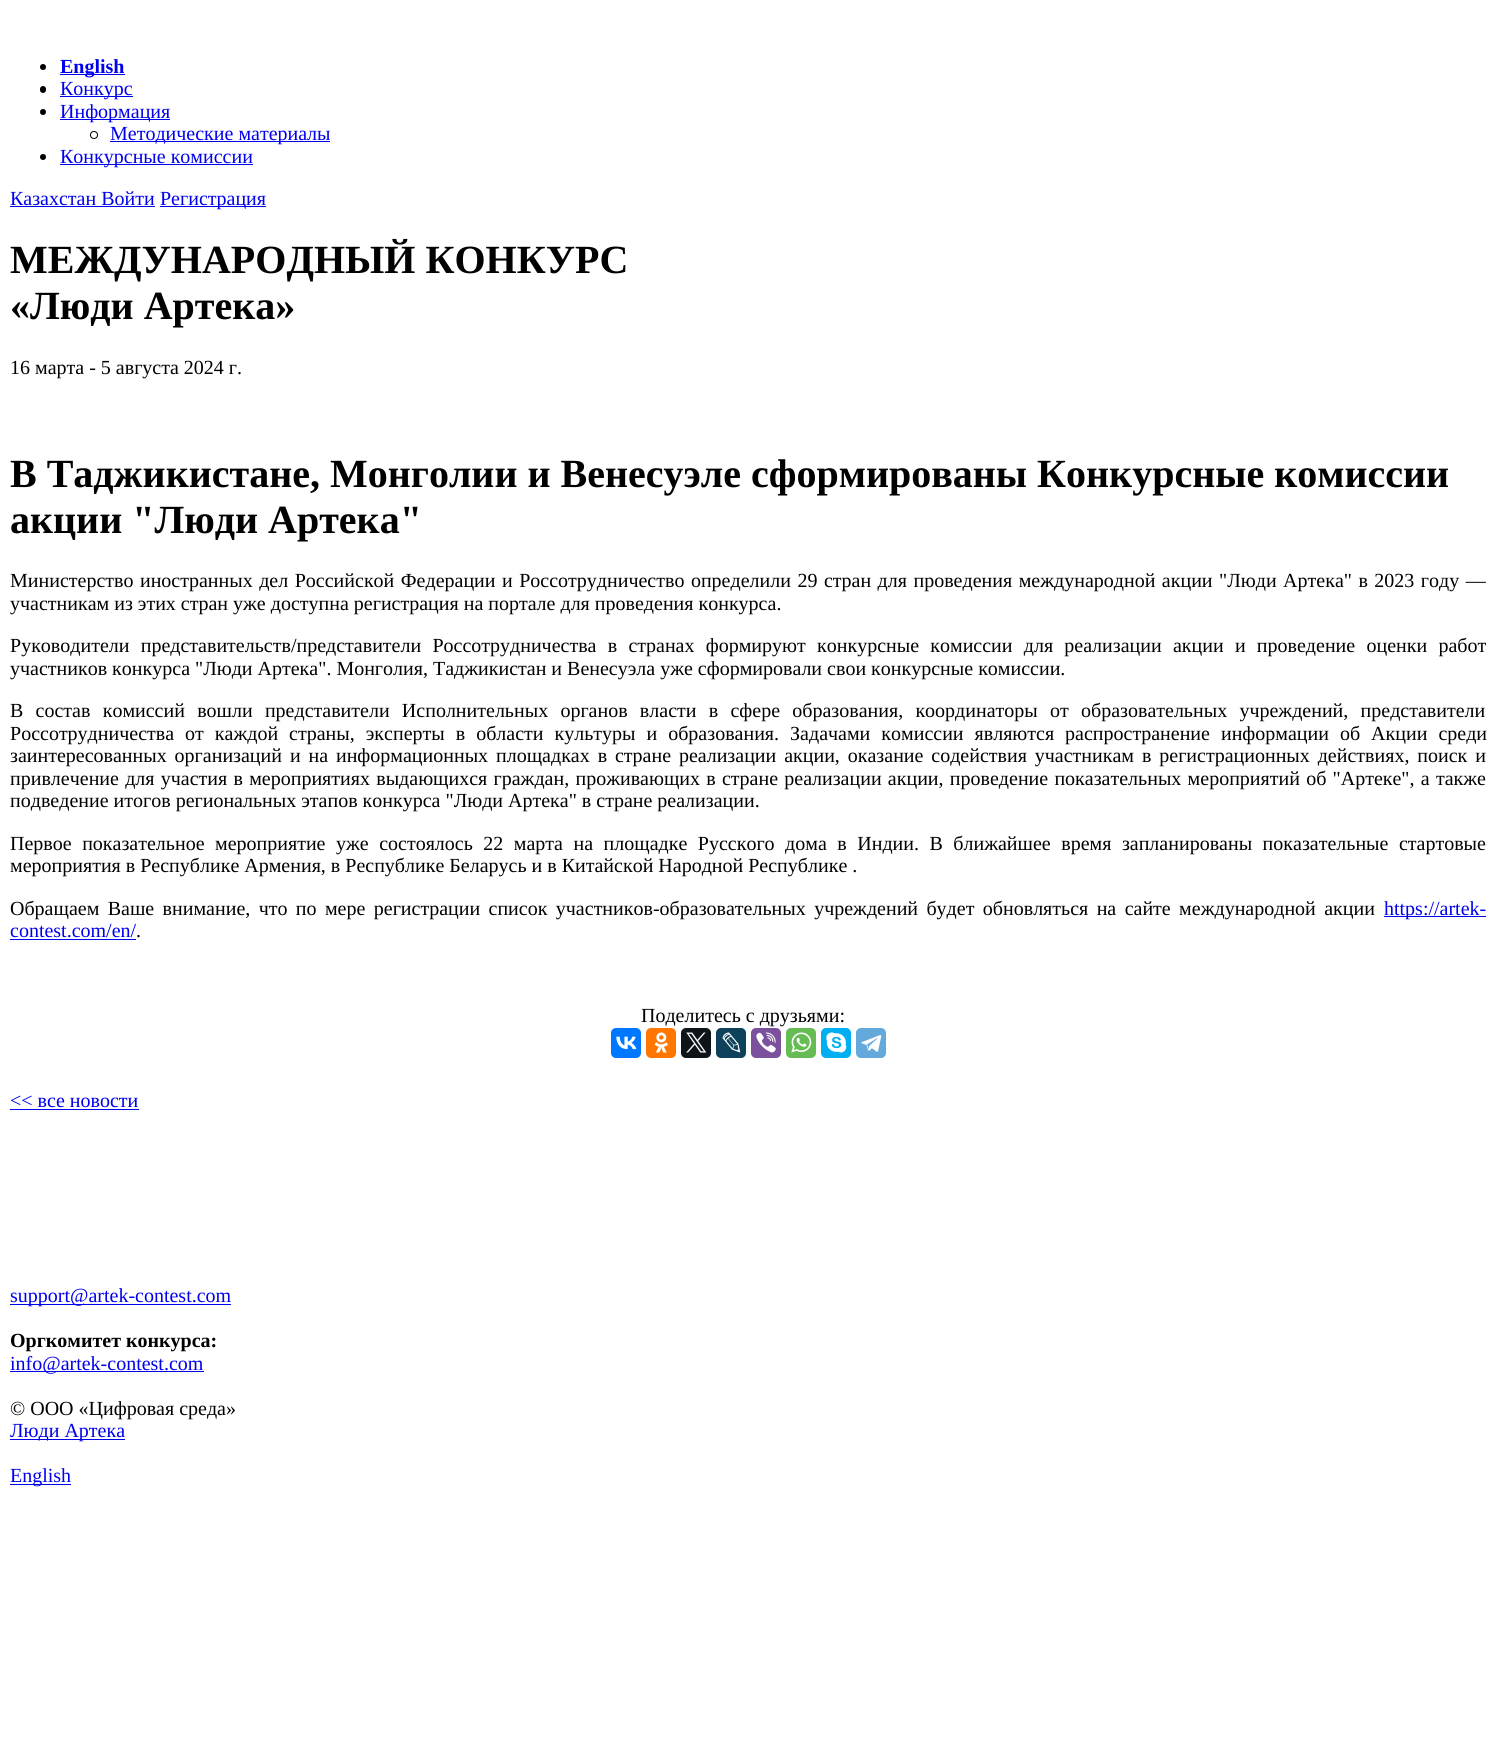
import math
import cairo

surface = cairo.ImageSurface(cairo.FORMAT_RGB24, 1496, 1761)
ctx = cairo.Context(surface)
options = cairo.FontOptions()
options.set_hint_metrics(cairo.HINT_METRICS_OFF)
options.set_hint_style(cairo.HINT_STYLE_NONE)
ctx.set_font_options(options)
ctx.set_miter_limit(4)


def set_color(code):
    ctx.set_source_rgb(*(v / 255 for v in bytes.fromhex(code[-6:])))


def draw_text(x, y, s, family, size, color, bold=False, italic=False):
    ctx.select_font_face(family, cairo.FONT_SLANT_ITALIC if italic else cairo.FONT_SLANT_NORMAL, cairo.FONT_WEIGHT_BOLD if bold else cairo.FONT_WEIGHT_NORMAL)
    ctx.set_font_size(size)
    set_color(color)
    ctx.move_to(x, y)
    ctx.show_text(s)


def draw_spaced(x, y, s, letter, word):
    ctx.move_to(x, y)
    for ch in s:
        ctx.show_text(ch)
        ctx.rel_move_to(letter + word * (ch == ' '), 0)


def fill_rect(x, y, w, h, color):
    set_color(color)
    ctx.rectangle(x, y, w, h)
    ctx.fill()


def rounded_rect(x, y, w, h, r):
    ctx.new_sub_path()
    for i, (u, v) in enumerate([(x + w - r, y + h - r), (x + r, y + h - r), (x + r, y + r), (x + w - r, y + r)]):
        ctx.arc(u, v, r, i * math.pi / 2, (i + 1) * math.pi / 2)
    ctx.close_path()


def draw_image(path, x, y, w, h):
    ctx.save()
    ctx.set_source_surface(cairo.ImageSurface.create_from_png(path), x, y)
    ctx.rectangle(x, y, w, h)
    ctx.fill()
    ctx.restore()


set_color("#ffffff")
ctx.paint()
set_color("#000000")
ctx.arc(43, 67, 3, 0, 2 * math.pi)
ctx.fill()
fill_rect(60, 74, 65, 1, "#0000ee")
draw_text(60, 73, "English", "Liberation Serif", 20, "#0000ee", bold=True)
set_color("#000000")
rounded_rect(40, 86, 6, 7, 3)
ctx.fill()
fill_rect(60, 96, 73, 1, "#0000ee")
draw_text(60, 95, "Конкурс", "Liberation Serif", 20, "#0000ee")
set_color("#000000")
ctx.new_path()
ctx.arc(43, 112, 3, 0, 2 * math.pi)
ctx.fill()
fill_rect(60, 119, 110, 1, "#0000ee")
draw_text(60, 118, "Информация", "Liberation Serif", 20, "#0000ee")
ctx.new_path()
ctx.arc(94, 135, 3.5, 0, 2 * math.pi)
set_color("#000000")
ctx.set_line_width(1)
ctx.stroke()
fill_rect(110, 141, 220, 1, "#0000ee")
draw_text(110, 140, "Методические материалы", "Liberation Serif", 20, "#0000ee")
set_color("#000000")
ctx.new_path()
ctx.arc(43, 157, 3, 0, 2 * math.pi)
ctx.fill()
fill_rect(60, 164, 193, 1, "#0000ee")
draw_text(60, 163, "Конкурсные комиссии", "Liberation Serif", 20, "#0000ee")
draw_text(10, 205, "Казахстан Войти", "Liberation Serif", 20, "#0000ee")
fill_rect(10, 206, 145, 1, "#0000ee")
fill_rect(160, 206, 106, 1, "#0000ee")
draw_text(160, 205, "Регистрация", "Liberation Serif", 20, "#0000ee")
draw_text(10, 273, "МЕЖДУНАРОДНЫЙ КОНКУРС", "Liberation Serif", 40, "#000000", bold=True)
draw_text(10, 319, "«Люди Артека»", "Liberation Serif", 40, "#000000", bold=True)
draw_text(10, 374, "16 марта - 5 августа 2024 г.", "Liberation Serif", 20, "#000000")
draw_text(10, 487, "В Таджикистане, Монголии и Венесуэле сформированы Конкурсные комиссии", "Liberation Serif", 40, "#000000", bold=True)
draw_text(10, 533, "акции \"Люди Артека\"", "Liberation Serif", 40, "#000000", bold=True)
ctx.select_font_face("Liberation Serif")
ctx.set_font_size(20)
draw_spaced(10, 587, "Министерство иностранных дел Российской Федерации и Россотрудничество определили 29 стран для проведения международной акции \"Люди Артека\" в 2023 году —", 0, 1.5)
draw_text(10, 610, "участникам из этих стран уже доступна регистрация на портале для проведения конкурса.", "Liberation Serif", 20, "#000000")
draw_spaced(10, 652, "Руководители представительств/представители Россотрудничества в странах формируют конкурсные комиссии для реализации акции и проведение оценки работ", 0, 6.25)
draw_text(10, 675, "участников конкурса \"Люди Артека\". Монголия, Таджикистан и Венесуэла уже сформировали свои конкурсные комиссии.", "Liberation Serif", 20, "#000000")
draw_spaced(10, 717, "В состав комиссий вошли представители Исполнительных органов власти в сфере образования, координаторы от образовательных учреждений, представители", 0, 7.25)
draw_spaced(10, 740, "Россотрудничества от каждой страны, эксперты в области культуры и образования. Задачами комиссии являются распространение информации об Акции среди", 0, 6)
draw_spaced(10, 762, "заинтересованных организаций и на информационных площадках в стране реализации акции, оказание содействия участникам в регистрационных действиях, поиск и", 0, 2.9)
draw_spaced(10, 785, "привлечение для участия в мероприятиях выдающихся граждан, проживающих в стране реализации акции, проведение показательных мероприятий об \"Артеке\", а также", 0, 1.25)
draw_text(10, 807, "подведение итогов региональных этапов конкурса \"Люди Артека\" в стране реализации.", "Liberation Serif", 20, "#000000")
draw_spaced(10, 850, "Первое показательное мероприятие уже состоялось 22 марта на площадке Русского дома в Индии. В ближайшее время запланированы показательные стартовые", 0, 5.5)
draw_text(10, 872, "мероприятия в Республике Армения, в Республике Беларусь и в Китайской Народной Республике .", "Liberation Serif", 20, "#000000")
draw_spaced(10, 915, "Обращаем Ваше внимание, что по мере регистрации список участников-образовательных учреждений будет обновляться на сайте международной акции", 0, 3.4)
fill_rect(1384, 916, 102, 1, "#0000ee")
draw_text(1384, 915, "https://artek-", "Liberation Serif", 20, "#0000ee")
draw_text(10, 937, "contest.com/en/", "Liberation Serif", 20, "#0000ee")
fill_rect(10, 939, 126, 1, "#0000ee")
draw_text(136, 937, ".", "Liberation Serif", 20, "#000000")
draw_text(641, 1022, "Поделитесь с друзьями:", "Liberation Serif", 20, "#000000")
set_color("#0077ff")
rounded_rect(611, 1028, 30, 30, 5)
ctx.fill()
draw_image("assets/img1.png", 616, 1036, 21, 14)
set_color("#ff7700")
rounded_rect(646, 1028, 30, 30, 5)
ctx.fill()
draw_image("assets/img2.png", 654, 1032, 14, 21)
set_color("#0f1419")
rounded_rect(681, 1028, 30, 30, 5)
ctx.fill()
draw_image("assets/img3.png", 686, 1032, 21, 21)
set_color("#0d425a")
rounded_rect(716, 1028, 30, 30, 5)
ctx.fill()
draw_image("assets/img4.png", 722, 1032, 19, 21)
set_color("#7b519d")
rounded_rect(751, 1028, 30, 30, 5)
ctx.fill()
draw_image("assets/img5.png", 756, 1032, 20, 21)
set_color("#65bc54")
rounded_rect(786, 1028, 30, 30, 5)
ctx.fill()
draw_image("assets/img6.png", 791, 1032, 21, 21)
set_color("#00aff0")
rounded_rect(821, 1028, 30, 30, 5)
ctx.fill()
draw_image("assets/img7.png", 826, 1032, 21, 21)
set_color("#64a9dc")
rounded_rect(856, 1028, 30, 30, 5)
ctx.fill()
draw_image("assets/img8.png", 861, 1035, 21, 17)
draw_text(10, 1107, "<< все новости", "Liberation Serif", 20, "#0000ee")
fill_rect(10, 1109, 129, 1, "#0000ee")
fill_rect(10, 1304, 221, 1, "#0000ee")
draw_text(10, 1302, "support@artek-contest.com", "Liberation Serif", 20, "#0000ee")
draw_text(10, 1347, "Оргкомитет конкурса:", "Liberation Serif", 20, "#000000", bold=True)
fill_rect(10, 1371, 194, 1, "#0000ee")
draw_text(10, 1370, "info@artek-contest.com", "Liberation Serif", 20, "#0000ee")
draw_text(10, 1415, "© ООО «Цифровая среда»", "Liberation Serif", 20, "#000000")
fill_rect(10, 1439, 115, 1, "#0000ee")
draw_text(10, 1437, "Люди Артека", "Liberation Serif", 20, "#0000ee")
fill_rect(10, 1484, 61, 1, "#0000ee")
draw_text(10, 1482, "English", "Liberation Serif", 20, "#0000ee")
surface.write_to_png("output.png")
